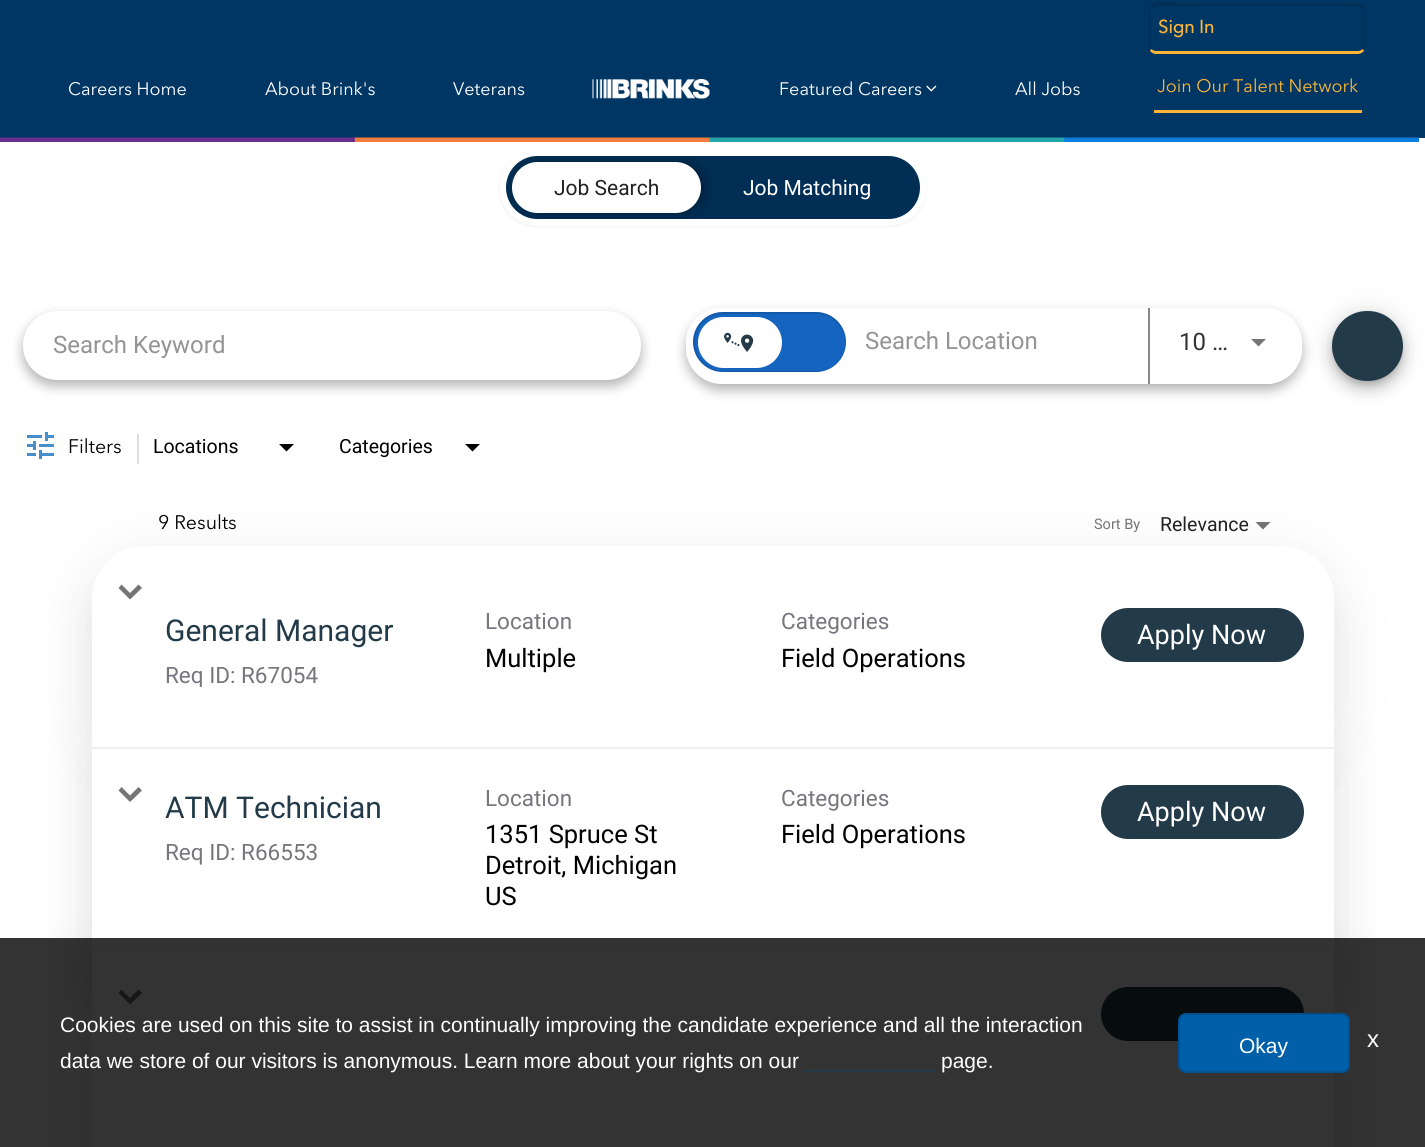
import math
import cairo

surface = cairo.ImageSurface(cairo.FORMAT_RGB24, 1425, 1147)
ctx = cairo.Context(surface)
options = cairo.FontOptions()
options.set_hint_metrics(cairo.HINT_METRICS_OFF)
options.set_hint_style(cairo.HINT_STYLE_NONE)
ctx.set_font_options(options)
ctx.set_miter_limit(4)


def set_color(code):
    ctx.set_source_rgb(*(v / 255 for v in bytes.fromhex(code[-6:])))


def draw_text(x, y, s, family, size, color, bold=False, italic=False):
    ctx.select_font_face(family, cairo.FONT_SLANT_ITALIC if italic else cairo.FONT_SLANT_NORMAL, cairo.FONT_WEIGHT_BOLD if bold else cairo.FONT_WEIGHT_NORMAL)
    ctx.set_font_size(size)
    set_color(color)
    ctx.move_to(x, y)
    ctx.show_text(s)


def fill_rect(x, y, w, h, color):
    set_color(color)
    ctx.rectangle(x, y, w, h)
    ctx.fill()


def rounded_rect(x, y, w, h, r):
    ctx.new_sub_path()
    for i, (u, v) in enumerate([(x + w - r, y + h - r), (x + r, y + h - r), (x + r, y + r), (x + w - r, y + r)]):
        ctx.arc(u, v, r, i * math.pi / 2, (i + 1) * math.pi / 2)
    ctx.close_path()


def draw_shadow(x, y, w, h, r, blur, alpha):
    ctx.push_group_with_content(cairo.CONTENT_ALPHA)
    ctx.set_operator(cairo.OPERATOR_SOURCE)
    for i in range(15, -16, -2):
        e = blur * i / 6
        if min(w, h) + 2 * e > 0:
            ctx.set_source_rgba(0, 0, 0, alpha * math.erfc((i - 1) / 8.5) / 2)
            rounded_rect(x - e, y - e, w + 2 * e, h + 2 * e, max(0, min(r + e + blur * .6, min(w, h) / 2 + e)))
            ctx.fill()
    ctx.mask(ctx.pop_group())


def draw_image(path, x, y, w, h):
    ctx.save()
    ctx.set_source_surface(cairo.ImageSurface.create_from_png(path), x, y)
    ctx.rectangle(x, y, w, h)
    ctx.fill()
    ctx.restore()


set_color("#ffffff")
ctx.paint()
fill_rect(0, 0, 1425, 138, "#003663")
draw_text(68, 95, "Careers Home", "Avenir Next", 18, "#ffffff")
draw_text(265, 95, "About Brink's", "Avenir Next", 18, "#ffffff")
draw_text(453, 95, "Veterans", "Avenir Next", 18, "#ffffff")
draw_image("assets/img1.png", 592, 79, 118, 20)
draw_text(779, 95, "Featured Careers", "Avenir Next", 18, "#ffffff")
draw_image("assets/img2.png", 926, 85, 11, 7)
draw_text(1015, 95, "All Jobs", "Avenir Next", 18, "#ffffff")
set_color("#002e54")
ctx.new_path()
ctx.move_to(1156, 6)
ctx.curve_to(1155, 6, 1153, 7, 1152, 8)
ctx.line_to(1151, 6)
ctx.curve_to(1159, -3, 1175, 4, 1188, 4)
ctx.line_to(1360, 4)
ctx.line_to(1363, 6)
ctx.line_to(1362, 8)
ctx.curve_to(1361, 7, 1359, 6, 1358, 6)
ctx.close_path()
ctx.fill()
ctx.set_source_rgba(0, 0, 0, 0.15)
ctx.new_path()
ctx.move_to(1365, 46)
ctx.line_to(1365, 12)
ctx.curve_to(1365, 10, 1364, 8, 1363, 6)
ctx.line_to(1362, 8)
ctx.curve_to(1363, 9, 1364, 10, 1364, 12)
ctx.line_to(1364, 46)
ctx.curve_to(1364, 47, 1363, 48, 1363, 49)
ctx.line_to(1364, 51)
ctx.curve_to(1364, 50, 1365, 48, 1365, 46)
ctx.close_path()
ctx.fill()
set_color("#fcb539")
ctx.new_path()
ctx.move_to(1156, 54)
ctx.line_to(1358, 54)
ctx.curve_to(1360, 54, 1362, 53, 1364, 51)
ctx.line_to(1363, 49)
ctx.curve_to(1361, 50, 1360, 51, 1358, 51)
ctx.line_to(1156, 51)
ctx.curve_to(1154, 51, 1153, 50, 1151, 49)
ctx.line_to(1150, 51)
ctx.curve_to(1152, 53, 1154, 54, 1156, 54)
ctx.close_path()
ctx.fill()
ctx.set_source_rgba(0, 0, 0, 0.15)
ctx.new_path()
ctx.move_to(1149, 12)
ctx.line_to(1149, 46)
ctx.curve_to(1149, 48, 1150, 50, 1150, 51)
ctx.line_to(1151, 49)
ctx.curve_to(1151, 48, 1150, 47, 1150, 46)
ctx.line_to(1150, 12)
ctx.curve_to(1150, 10, 1151, 9, 1152, 8)
ctx.line_to(1151, 6)
ctx.curve_to(1150, 8, 1149, 10, 1149, 12)
ctx.close_path()
ctx.fill()
draw_text(1158, 33, "Sign In", "Avenir Next", 18, "#fcb539", bold=True)
fill_rect(1154, 110, 208, 3, "#fcb539")
draw_text(1157, 92, "Join Our Talent Network", "Avenir Next", 18, "#fcb539")
draw_image("assets/img3.png", 0, 137, 1419, 5)
ctx.set_source_rgba(0, 0, 0, 0.03)
ctx.new_path()
ctx.move_to(537, 150)
ctx.curve_to(515, 150, 498, 167, 498, 189)
ctx.curve_to(498, 211, 515, 228, 537, 228)
ctx.line_to(888, 228)
ctx.curve_to(910, 228, 927, 211, 927, 189)
ctx.curve_to(927, 167, 910, 150, 888, 150)
ctx.curve_to(909, 150, 926, 167, 926, 188)
ctx.curve_to(926, 208, 909, 225, 888, 225)
ctx.line_to(537, 225)
ctx.curve_to(516, 225, 500, 208, 500, 188)
ctx.curve_to(500, 167, 516, 150, 537, 150)
ctx.close_path()
ctx.fill()
set_color("#002e54")
rounded_rect(503, 153, 420, 69, 34.5)
ctx.fill_preserve()
set_color("#ffffff")
ctx.set_line_width(6)
ctx.stroke()
ctx.save()
rounded_rect(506, 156, 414, 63, 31.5)
ctx.clip()
set_color("#000000")
draw_shadow(516, 162, 189, 51, 25.5, 6, 0.3)
ctx.restore()
rounded_rect(512, 162, 189, 51, 25.5)
ctx.fill()
draw_text(554, 195, "Job Search", "Roboto", 21, "#212121")
draw_text(743, 195, "Job Matching", "Roboto", 21, "#ffffff")
set_color("#000000")
draw_shadow(23, 317, 618, 69, 34.5, 6, 0.3)
set_color("#ffffff")
rounded_rect(23, 311, 618, 69, 34.5)
ctx.fill()
draw_text(53, 353, "Search Keyword", "Roboto", 24, "#949494")
ctx.save()
ctx.set_fill_rule(cairo.FILL_RULE_EVEN_ODD)
ctx.new_path()
ctx.move_to(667, 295)
ctx.line_to(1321, 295)
ctx.line_to(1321, 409)
ctx.line_to(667, 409)
ctx.close_path()
ctx.move_to(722, 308)
ctx.line_to(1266, 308)
ctx.curve_to(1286, 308, 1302, 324, 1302, 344)
ctx.line_to(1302, 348)
ctx.curve_to(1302, 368, 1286, 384, 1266, 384)
ctx.line_to(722, 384)
ctx.curve_to(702, 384, 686, 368, 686, 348)
ctx.line_to(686, 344)
ctx.curve_to(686, 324, 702, 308, 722, 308)
ctx.close_path()
ctx.clip()
set_color("#000000")
draw_shadow(686, 314, 616, 76, 36, 6, 0.3)
ctx.restore()
set_color("#ffffff")
rounded_rect(686, 308, 450, 69, 34.5)
ctx.fill()
set_color("#1565c0")
rounded_rect(693, 312, 153, 60, 30)
ctx.fill()
rounded_rect(694, 313, 151, 58, 29)
ctx.set_source_rgba(0, 0, 0, 0.12)
ctx.set_line_width(2)
ctx.stroke()
set_color("#1565c0")
ctx.new_path()
ctx.move_to(723.5, 314)
ctx.line_to(785, 314)
ctx.line_to(785, 371)
ctx.line_to(723.5, 371)
ctx.curve_to(708, 371, 695, 358, 695, 342.5)
ctx.curve_to(695, 327, 708, 314, 723.5, 314)
ctx.close_path()
ctx.fill()
set_color("#ffffff")
rounded_rect(698, 317, 84, 51, 25.5)
ctx.fill()
draw_image("assets/img4.png", 724, 332, 30, 20)
set_color("#1565c0")
ctx.new_path()
ctx.move_to(785, 314)
ctx.line_to(816.5, 314)
ctx.curve_to(832, 314, 845, 327, 845, 342.5)
ctx.curve_to(845, 358, 832, 371, 816.5, 371)
ctx.line_to(785, 371)
ctx.close_path()
ctx.fill()
draw_text(865, 349, "Search Location", "Roboto", 24, "#949494")
set_color("#ffffff")
ctx.new_path()
ctx.move_to(1148, 308)
ctx.line_to(1266, 308)
ctx.curve_to(1286, 308, 1302, 324, 1302, 344)
ctx.line_to(1302, 348)
ctx.curve_to(1302, 368, 1286, 384, 1266, 384)
ctx.line_to(1148, 384)
ctx.close_path()
ctx.fill()
fill_rect(1148, 308, 2, 76, "#888888")
draw_text(1179, 350, "10 …", "Roboto", 24, "#333333")
set_color("#757575")
ctx.new_path()
ctx.move_to(1251, 339)
ctx.line_to(1266, 339)
ctx.line_to(1258.5, 346.5)
ctx.close_path()
ctx.fill()
set_color("#000000")
draw_shadow(1332, 312, 71, 71, 35.5, 13.5, 0.12)
draw_shadow(1332, 320, 71, 70, 35, 7.5, 0.14)
draw_shadow(1334, 317, 67, 67, 33.5, 4, 0.2)
set_color("#233a49")
rounded_rect(1332, 311, 71, 70, 35)
ctx.fill()
draw_image("assets/img5.png", 27, 432, 27, 27)
fill_rect(137, 434, 2, 30, "#dddddd")
draw_text(68, 453, "Filters", "Avenir Next", 19.5, "#000000")
draw_text(153, 453, "Locations", "Roboto", 19.5, "#000000")
ctx.new_path()
ctx.move_to(279, 444)
ctx.line_to(294, 444)
ctx.line_to(286.5, 451.5)
ctx.close_path()
ctx.fill()
draw_text(339, 453, "Categories", "Roboto", 19.5, "#000000")
ctx.new_path()
ctx.move_to(465, 444)
ctx.line_to(480, 444)
ctx.line_to(472.5, 451.5)
ctx.close_path()
ctx.fill()
draw_text(158, 529, "9 Results", "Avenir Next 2", 19.5, "#000000")
draw_text(1094, 529, "Sort By", "Roboto", 14.5, "#757575")
draw_text(1160, 531, "Relevance", "Roboto", 19.5, "#212121")
set_color("#757575")
ctx.new_path()
ctx.move_to(1255.5, 522)
ctx.line_to(1270.5, 522)
ctx.line_to(1263, 529.5)
ctx.close_path()
ctx.fill()
set_color("#000000")
draw_shadow(81, 548, 1263, 223, 63, 28.5, 0.05)
draw_shadow(87, 572, 1251, 211, 57, 23, 0.06)
draw_shadow(81, 750, 1263, 224, 0, 28.5, 0.05)
draw_shadow(87, 774, 1251, 212, 0, 23, 0.06)
set_color("#ffffff")
ctx.new_path()
ctx.move_to(145, 546)
ctx.line_to(1281, 546)
ctx.curve_to(1310.5, 546, 1334, 569.5, 1334, 599)
ctx.line_to(1334, 749)
ctx.line_to(92, 749)
ctx.line_to(92, 599)
ctx.curve_to(92, 569.5, 115.5, 546, 145, 546)
ctx.close_path()
ctx.fill()
set_color("#757575")
ctx.new_path()
ctx.move_to(142, 588)
ctx.line_to(130, 599.5)
ctx.line_to(130, 593)
ctx.line_to(138.5, 584.5)
ctx.close_path()
ctx.move_to(130, 599.5)
ctx.line_to(118.5, 588)
ctx.line_to(121.5, 584.5)
ctx.line_to(130, 593)
ctx.close_path()
ctx.fill()
draw_text(165, 641, "General Manager", "Roboto", 30, "#233a49")
ctx.save()
ctx.rectangle(165, 608, 1139, 79)
ctx.clip()
draw_text(165, 683, "Req ID:", "Roboto", 22.5, "#76767e")
ctx.restore()
draw_text(241, 683, "R67054", "Roboto", 22.5, "#76767e")
draw_text(485, 629, "Location", "Roboto", 22.5, "#76767e")
draw_text(485, 667, "Multiple", "Roboto", 25.5, "#000000")
draw_text(781, 629, "Categories", "Roboto", 22.5, "#76767e")
draw_text(781, 667, "Field Operations", "Roboto", 25.5, "#000000")
set_color("#233a49")
rounded_rect(1101, 608, 203, 54, 27)
ctx.fill()
draw_text(1137, 644, "Apply Now", "Roboto", 27, "#ffffff")
fill_rect(92, 747, 1242, 2, "#eeeeee")
set_color("#000000")
draw_shadow(81, 953, 1263, 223, 0, 28.5, 0.05)
draw_shadow(87, 977, 1251, 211, 0, 23, 0.06)
fill_rect(92, 749, 1242, 201, "#ffffff")
set_color("#757575")
ctx.new_path()
ctx.move_to(142, 790.5)
ctx.line_to(130, 802)
ctx.line_to(130, 795.5)
ctx.line_to(138.5, 787)
ctx.close_path()
ctx.move_to(130, 802)
ctx.line_to(118.5, 790.5)
ctx.line_to(121.5, 787)
ctx.line_to(130, 795.5)
ctx.close_path()
ctx.fill()
draw_text(165, 818, "ATM Technician", "Roboto", 30, "#233a49")
draw_text(165, 860, "Req ID: R66553", "Roboto", 22.5, "#76767e")
draw_text(485, 806, "Location", "Roboto", 22.5, "#76767e")
draw_text(485, 843, "1351 Spruce St", "Roboto", 25.5, "#000000")
draw_text(485, 874, "Detroit, Michigan", "Roboto", 25.5, "#000000")
draw_text(485, 905, "US", "Roboto", 25.5, "#000000")
draw_text(781, 806, "Categories", "Roboto", 22.5, "#76767e")
draw_text(781, 843, "Field Operations", "Roboto", 25.5, "#000000")
set_color("#233a49")
rounded_rect(1101, 785, 203, 54, 27)
ctx.fill()
draw_text(1137, 821, "Apply Now", "Roboto", 27, "#ffffff")
fill_rect(92, 950, 1242, 1, "#eeeeee")
fill_rect(92, 951, 1242, 196, "#ffffff")
set_color("#757575")
ctx.new_path()
ctx.move_to(142, 993)
ctx.line_to(130, 1004.5)
ctx.line_to(130, 998)
ctx.line_to(138.5, 989.5)
ctx.close_path()
ctx.move_to(130, 1004.5)
ctx.line_to(118.5, 993)
ctx.line_to(121.5, 989.5)
ctx.line_to(130, 998)
ctx.close_path()
ctx.fill()
set_color("#233a49")
rounded_rect(1101, 987, 203, 54, 27)
ctx.fill()
ctx.set_source_rgba(0, 0, 0, 0.8)
ctx.rectangle(0, 938, 1425, 209)
ctx.fill()
draw_text(60, 1032, "Cookies are used on this site to assist in continually improving the candidate experience and all the interaction", "Liberation Sans", 21, "#ffffff")
draw_text(60, 1068, "data we store of our visitors is anonymous. Learn more about your rights on our", "Liberation Sans", 21, "#ffffff")
fill_rect(804, 1070, 132, 2, "#233a49")
draw_text(941, 1068, "page.", "Liberation Sans", 21, "#ffffff")
set_color("#005fa9")
rounded_rect(1178, 1013, 172, 60, 8)
ctx.fill()
rounded_rect(1179, 1014, 170, 58, 7)
ctx.set_source_rgba(0, 0, 0, 0.15)
ctx.stroke()
draw_text(1239, 1053, "Okay", "Liberation Sans", 21, "#ffffff")
draw_text(1367, 1047, "x", "Liberation Sans", 24, "#ffffff")
surface.write_to_png("output.png")
